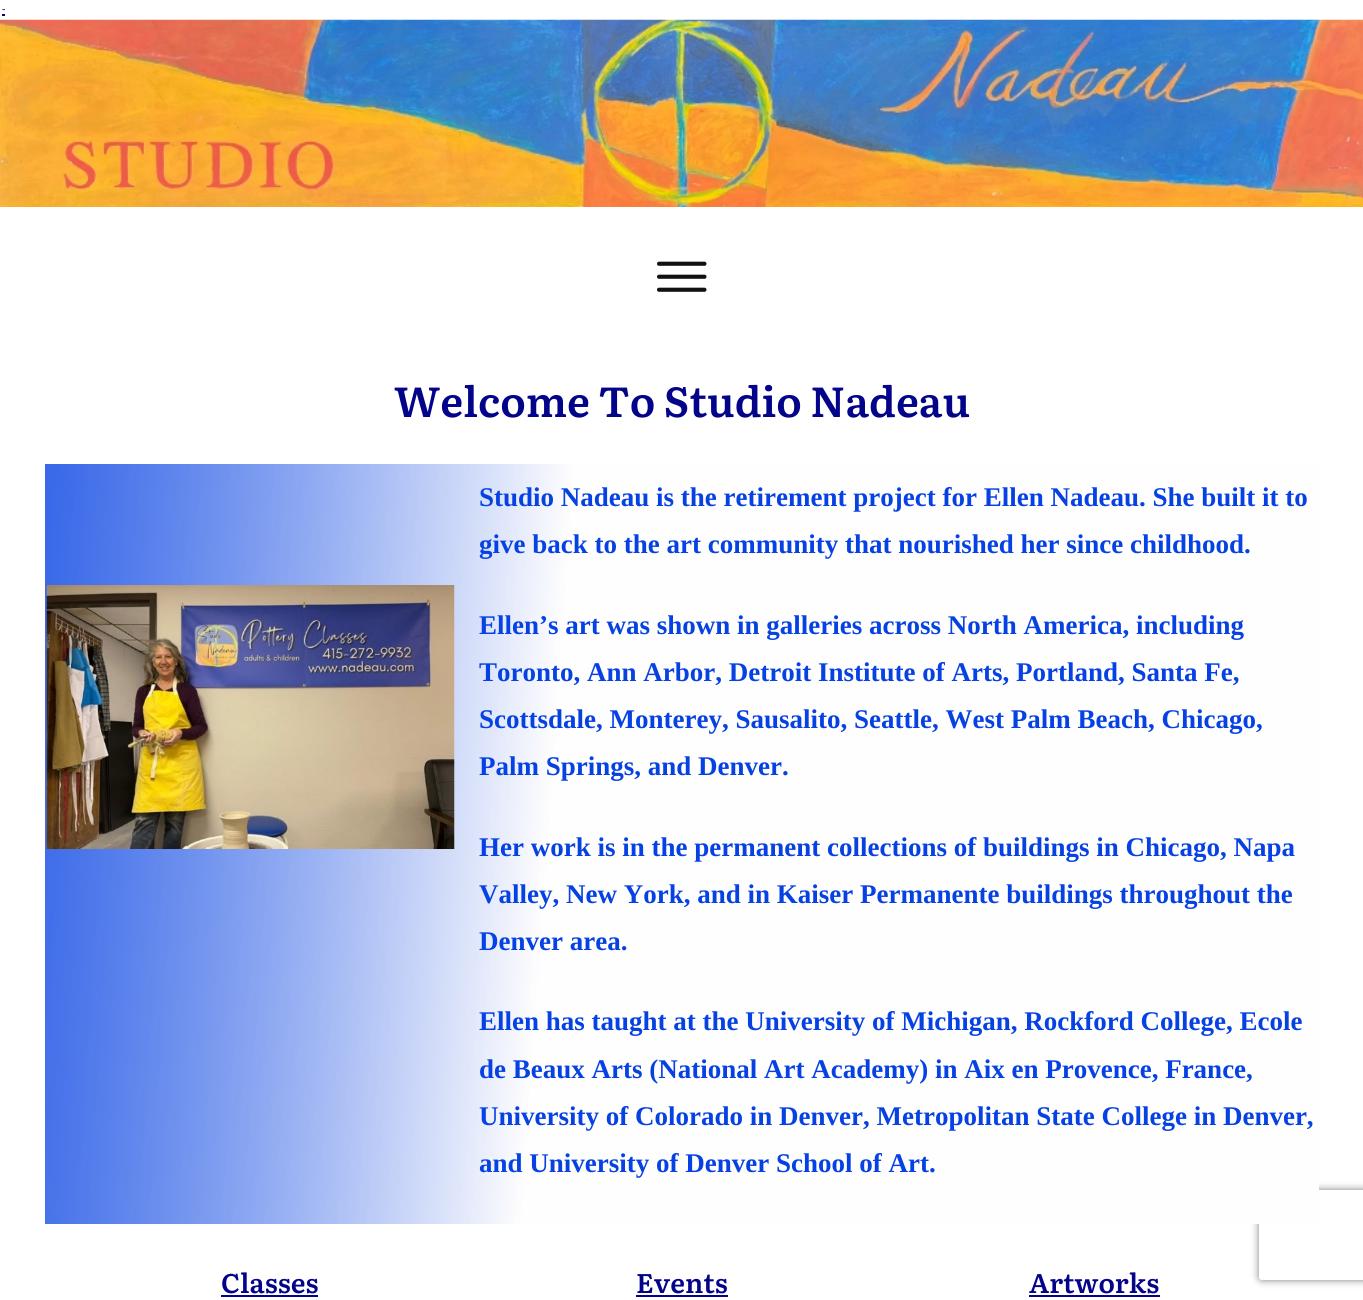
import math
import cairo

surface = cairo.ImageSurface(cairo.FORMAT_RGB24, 1363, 1300)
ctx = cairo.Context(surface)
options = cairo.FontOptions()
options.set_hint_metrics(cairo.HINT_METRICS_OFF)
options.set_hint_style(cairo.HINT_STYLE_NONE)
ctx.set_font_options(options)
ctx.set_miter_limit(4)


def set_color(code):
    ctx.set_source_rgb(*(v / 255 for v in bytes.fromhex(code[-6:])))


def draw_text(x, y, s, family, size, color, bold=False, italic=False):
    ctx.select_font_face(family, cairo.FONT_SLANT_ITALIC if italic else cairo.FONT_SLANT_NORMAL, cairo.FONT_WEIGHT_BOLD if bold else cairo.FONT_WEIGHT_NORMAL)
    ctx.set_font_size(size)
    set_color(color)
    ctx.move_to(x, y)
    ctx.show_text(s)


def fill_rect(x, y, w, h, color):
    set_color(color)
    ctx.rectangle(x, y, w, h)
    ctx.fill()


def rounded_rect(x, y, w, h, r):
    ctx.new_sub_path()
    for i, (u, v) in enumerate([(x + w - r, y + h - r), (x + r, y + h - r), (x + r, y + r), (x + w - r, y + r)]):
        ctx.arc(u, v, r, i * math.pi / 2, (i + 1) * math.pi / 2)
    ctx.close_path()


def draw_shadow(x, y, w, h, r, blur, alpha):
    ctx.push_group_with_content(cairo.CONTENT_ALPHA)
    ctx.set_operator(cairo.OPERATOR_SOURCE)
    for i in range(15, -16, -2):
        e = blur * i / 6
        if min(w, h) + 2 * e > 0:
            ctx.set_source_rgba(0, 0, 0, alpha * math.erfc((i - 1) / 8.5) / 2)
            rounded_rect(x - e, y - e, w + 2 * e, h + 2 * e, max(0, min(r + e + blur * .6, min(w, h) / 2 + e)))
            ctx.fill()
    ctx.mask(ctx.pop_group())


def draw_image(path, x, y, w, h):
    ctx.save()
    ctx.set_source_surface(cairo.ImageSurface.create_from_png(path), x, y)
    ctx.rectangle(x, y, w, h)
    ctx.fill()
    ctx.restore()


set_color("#ffffff")
ctx.paint()
draw_text(2, 12, "-", "Liberation Serif", 10, "#04048b", bold=True)
fill_rect(2, 14, 3, 2, "#04048b")
draw_image("assets/img1.png", 0, 19, 1363, 188)
draw_image("assets/img2.png", 657, 261, 50, 31)
draw_text(394, 417, "Welcome To Studio Nadeau", "Literata SemiBold", 42, "#04048b")
ctx.save()
ctx.set_fill_rule(cairo.FILL_RULE_EVEN_ODD)
ctx.new_path()
ctx.move_to(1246, 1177)
ctx.line_to(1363, 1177)
ctx.line_to(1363, 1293)
ctx.line_to(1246, 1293)
ctx.close_path()
ctx.move_to(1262, 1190)
ctx.line_to(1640, 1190)
ctx.curve_to(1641.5, 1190, 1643, 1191.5, 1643, 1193)
ctx.line_to(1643, 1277)
ctx.curve_to(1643, 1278.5, 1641.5, 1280, 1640, 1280)
ctx.line_to(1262, 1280)
ctx.curve_to(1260.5, 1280, 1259, 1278.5, 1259, 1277)
ctx.line_to(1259, 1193)
ctx.curve_to(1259, 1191.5, 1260.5, 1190, 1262, 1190)
ctx.close_path()
ctx.clip()
set_color("#808080")
draw_shadow(1259, 1190, 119, 90, 3, 4, 1)
ctx.restore()
gradient = cairo.LinearGradient(22, 798, 1342, 890)
gradient.add_color_stop_rgba(0, 0.024, 0.259, 0.89, 0.8)
gradient.add_color_stop_rgba(0.4, 1, 0.996, 0.996, 1)
ctx.set_source(gradient)
ctx.rectangle(45, 464, 1274, 760)
ctx.fill()
draw_image("assets/img3.png", 46, 585, 409, 264)
draw_text(479, 506, "Studio Nadeau is the retirement project for Ellen Nadeau. She built it to", "Liberation Serif", 27, "#0642e3", bold=True)
draw_text(479, 553, "give back to the art community that nourished her since childhood.", "Liberation Serif", 27, "#0642e3", bold=True)
draw_text(479, 634, "Ellen’s art was shown in galleries across North America, including", "Liberation Serif", 27, "#0642e3", bold=True)
draw_text(479, 681, "Toronto, Ann Arbor, Detroit Institute of Arts, Portland, Santa Fe,", "Liberation Serif", 27, "#0642e3", bold=True)
draw_text(479, 728, "Scottsdale, Monterey, Sausalito, Seattle, West Palm Beach, Chicago,", "Liberation Serif", 27, "#0642e3", bold=True)
draw_text(479, 775, "Palm Springs, and Denver.", "Liberation Serif", 27, "#0642e3", bold=True)
draw_text(479, 856, "Her work is in the permanent collections of buildings in Chicago, Napa", "Liberation Serif", 27, "#0642e3", bold=True)
draw_text(479, 903, "Valley, New York, and in Kaiser Permanente buildings throughout the", "Liberation Serif", 27, "#0642e3", bold=True)
draw_text(479, 950, "Denver area.", "Liberation Serif", 27, "#0642e3", bold=True)
draw_text(479, 1030, "Ellen has taught at the University of Michigan, Rockford College, Ecole", "Liberation Serif", 27, "#0642e3", bold=True)
draw_text(479, 1078, "de Beaux Arts (National Art Academy) in Aix en Provence, France,", "Liberation Serif", 27, "#0642e3", bold=True)
draw_text(479, 1125, "University of Colorado in Denver, Metropolitan State College in Denver,", "Liberation Serif", 27, "#0642e3", bold=True)
draw_text(479, 1172, "and University of Denver School of Art.", "Liberation Serif", 27, "#0642e3", bold=True)
draw_text(221, 1293, "Classes", "Literata SemiBold", 27, "#04048b")
fill_rect(221, 1295, 97, 2, "#04048b")
draw_text(636, 1293, "Events", "Literata SemiBold", 27, "#04048b")
fill_rect(636, 1295, 92, 2, "#04048b")
draw_text(1029, 1293, "Artworks", "Literata SemiBold", 27, "#04048b")
fill_rect(1029, 1295, 131, 2, "#04048b")
surface.write_to_png("output.png")
